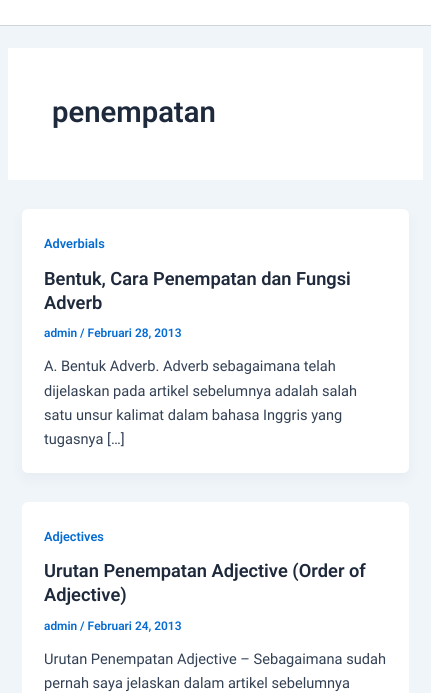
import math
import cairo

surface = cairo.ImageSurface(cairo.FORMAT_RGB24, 431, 693)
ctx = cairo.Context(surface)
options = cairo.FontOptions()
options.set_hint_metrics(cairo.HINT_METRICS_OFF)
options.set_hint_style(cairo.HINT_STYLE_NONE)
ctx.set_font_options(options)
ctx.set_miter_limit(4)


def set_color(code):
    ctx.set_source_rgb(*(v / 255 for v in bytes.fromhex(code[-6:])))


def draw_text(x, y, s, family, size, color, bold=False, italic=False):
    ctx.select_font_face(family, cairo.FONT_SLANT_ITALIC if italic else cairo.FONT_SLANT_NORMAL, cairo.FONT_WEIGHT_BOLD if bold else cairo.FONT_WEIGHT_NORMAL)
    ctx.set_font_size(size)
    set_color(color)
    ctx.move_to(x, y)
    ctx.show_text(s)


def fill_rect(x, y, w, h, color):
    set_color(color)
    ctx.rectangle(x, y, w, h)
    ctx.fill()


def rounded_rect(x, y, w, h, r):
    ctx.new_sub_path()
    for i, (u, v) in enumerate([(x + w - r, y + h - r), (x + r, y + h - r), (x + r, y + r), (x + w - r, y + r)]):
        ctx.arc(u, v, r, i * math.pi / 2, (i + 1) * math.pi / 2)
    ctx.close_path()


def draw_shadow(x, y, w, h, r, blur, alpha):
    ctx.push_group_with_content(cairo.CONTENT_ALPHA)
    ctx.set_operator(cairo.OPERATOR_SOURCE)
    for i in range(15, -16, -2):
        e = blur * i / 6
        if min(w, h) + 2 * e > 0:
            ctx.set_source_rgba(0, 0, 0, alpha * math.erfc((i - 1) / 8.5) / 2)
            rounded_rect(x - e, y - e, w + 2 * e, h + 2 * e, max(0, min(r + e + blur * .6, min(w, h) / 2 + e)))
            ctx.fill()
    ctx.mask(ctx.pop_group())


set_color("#f0f5fa")
ctx.paint()
fill_rect(0, 0, 431, 25, "#ffffff")
fill_rect(0, 25, 431, 1, "#d1d5db")
fill_rect(8, 48, 415, 132, "#ffffff")
draw_text(52, 122, "penempatan", "Roboto SemiBold", 29.25, "#1e293b")
set_color("#101828")
draw_shadow(24, 217, 383, 260, 4, 7.5, 0.05)
set_color("#ffffff")
rounded_rect(22, 209, 387, 264, 6)
ctx.fill()
draw_text(44, 248, "Adverbials", "Roboto SemiBold", 12.75, "#046bd2")
draw_text(44, 285, "Bentuk, Cara Penempatan dan Fungsi", "Roboto SemiBold", 18.25, "#1e293b")
draw_text(44, 309, "Adverb", "Roboto SemiBold", 18.25, "#1e293b")
draw_text(44, 337, "admin / Februari 28, 2013", "Roboto SemiBold", 11.9, "#046bd2")
draw_text(44, 371, "A. Bentuk Adverb. Adverb sebagaimana telah", "Roboto", 14.6, "#334155")
draw_text(44, 396, "dijelaskan pada artikel sebelumnya adalah salah", "Roboto", 14.6, "#334155")
draw_text(44, 420, "satu unsur kalimat dalam bahasa Inggris yang", "Roboto", 14.6, "#334155")
draw_text(44, 444, "tugasnya […]", "Roboto", 14.6, "#334155")
set_color("#ffffff")
rounded_rect(22, 502, 387, 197, 6)
ctx.fill()
draw_text(44, 541, "Adjectives", "Roboto SemiBold", 12.75, "#046bd2")
draw_text(44, 577, "Urutan Penempatan Adjective (Order of", "Roboto SemiBold", 18.25, "#1e293b")
draw_text(44, 601, "Adjective)", "Roboto SemiBold", 18.25, "#1e293b")
draw_text(44, 630, "admin / Februari 24, 2013", "Roboto SemiBold", 11.9, "#046bd2")
draw_text(44, 664, "Urutan Penempatan Adjective – Sebagaimana sudah", "Roboto", 14.6, "#334155")
draw_text(44, 688, "pernah saya jelaskan dalam artikel sebelumnya", "Roboto", 14.6, "#334155")
surface.write_to_png("output.png")
